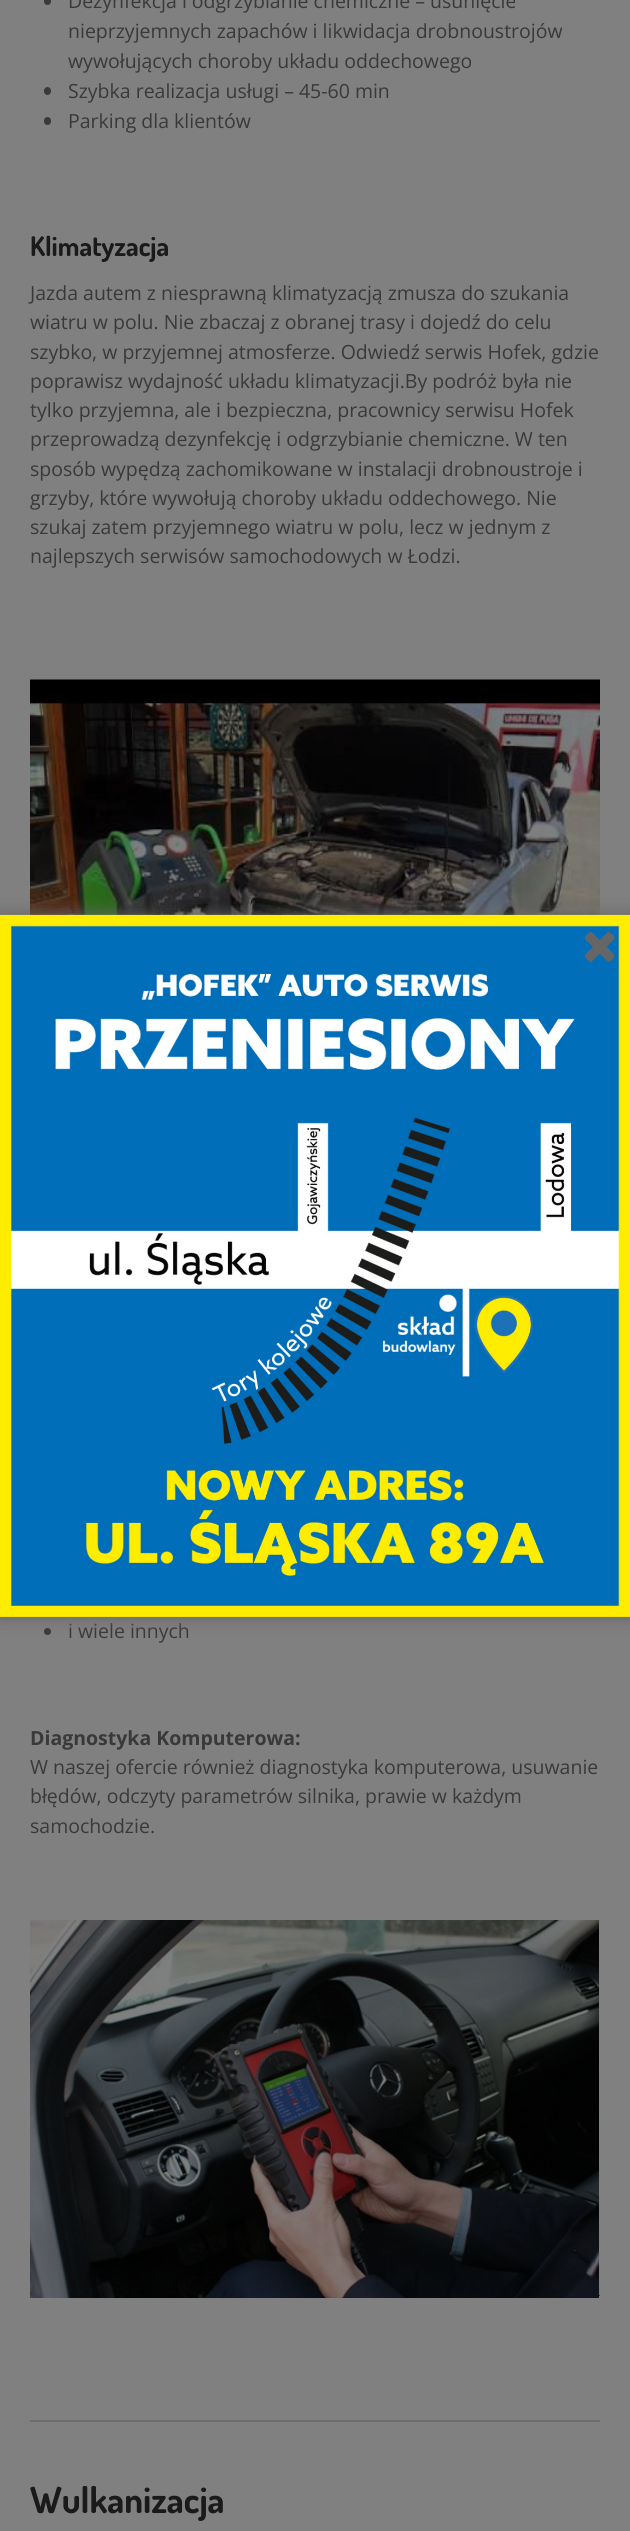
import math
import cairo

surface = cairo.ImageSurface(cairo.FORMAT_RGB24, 630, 2531)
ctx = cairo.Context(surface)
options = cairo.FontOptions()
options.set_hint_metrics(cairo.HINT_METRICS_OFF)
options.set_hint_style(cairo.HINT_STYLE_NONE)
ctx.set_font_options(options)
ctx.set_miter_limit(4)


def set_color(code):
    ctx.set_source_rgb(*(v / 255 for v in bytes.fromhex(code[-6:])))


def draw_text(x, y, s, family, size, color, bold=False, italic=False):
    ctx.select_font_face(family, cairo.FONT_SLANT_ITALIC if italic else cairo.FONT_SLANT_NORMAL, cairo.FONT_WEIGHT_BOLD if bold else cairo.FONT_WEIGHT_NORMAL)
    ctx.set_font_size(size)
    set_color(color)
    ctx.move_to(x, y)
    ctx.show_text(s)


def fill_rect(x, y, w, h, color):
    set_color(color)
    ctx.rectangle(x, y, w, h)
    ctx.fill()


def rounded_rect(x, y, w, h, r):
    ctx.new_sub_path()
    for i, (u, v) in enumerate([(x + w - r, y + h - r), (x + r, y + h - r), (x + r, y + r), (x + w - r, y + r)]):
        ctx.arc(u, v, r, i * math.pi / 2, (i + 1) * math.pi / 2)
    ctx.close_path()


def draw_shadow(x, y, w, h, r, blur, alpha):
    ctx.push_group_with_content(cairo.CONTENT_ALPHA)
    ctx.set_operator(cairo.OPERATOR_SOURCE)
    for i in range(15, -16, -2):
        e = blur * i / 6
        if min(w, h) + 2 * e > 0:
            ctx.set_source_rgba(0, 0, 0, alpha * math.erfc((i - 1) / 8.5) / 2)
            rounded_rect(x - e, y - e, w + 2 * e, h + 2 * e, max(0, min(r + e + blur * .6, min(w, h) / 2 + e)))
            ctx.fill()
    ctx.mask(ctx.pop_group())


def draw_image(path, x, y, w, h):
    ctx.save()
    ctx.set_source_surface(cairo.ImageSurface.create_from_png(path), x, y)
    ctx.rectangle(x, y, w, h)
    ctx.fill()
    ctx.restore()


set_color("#808080")
ctx.paint()
set_color("#393939")
rounded_rect(44, -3, 7, 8, 3.5)
ctx.fill()
draw_text(68, 8, "Dezynfekcja i odgrzybianie chemiczne – usunięcie", "Open Sans", 19.5, "#393939")
draw_text(68, 38, "nieprzyjemnych zapachów i likwidacja drobnoustrojów", "Open Sans", 19.5, "#393939")
draw_text(68, 68, "wywołujących choroby układu oddechowego", "Open Sans", 19.5, "#393939")
rounded_rect(44, 87, 7, 8, 3.5)
ctx.fill()
draw_text(68, 98, "Szybka realizacja usługi – 45-60 min", "Open Sans", 19.5, "#393939")
rounded_rect(44, 117, 7, 8, 3.5)
ctx.fill()
draw_text(68, 128, "Parking dla klientów", "Open Sans", 19.5, "#393939")
draw_text(30, 256, "Klimatyzacja", "Dosis", 27, "#1a1a1a", bold=True)
draw_text(30, 300, "Jazda autem z niesprawną klimatyzacją zmusza do szukania", "Open Sans", 19.5, "#393939")
draw_text(30, 329, "wiatru w polu. Nie zbaczaj z obranej trasy i dojedź do celu", "Open Sans", 19.5, "#393939")
draw_text(30, 359, "szybko, w przyjemnej atmosferze. Odwiedź serwis Hofek, gdzie", "Open Sans", 19.5, "#393939")
draw_text(30, 388, "poprawisz wydajność układu klimatyzacji.By podróż była nie", "Open Sans", 19.5, "#393939")
draw_text(30, 417, "tylko przyjemna, ale i bezpieczna, pracownicy serwisu Hofek", "Open Sans", 19.5, "#393939")
draw_text(30, 446, "przeprowadzą dezynfekcję i odgrzybianie chemiczne. W ten", "Open Sans", 19.5, "#393939")
draw_text(30, 476, "sposób wypędzą zachomikowane w instalacji drobnoustroje i", "Open Sans", 19.5, "#393939")
draw_text(30, 505, "grzyby, które wywołują choroby układu oddechowego. Nie", "Open Sans", 19.5, "#393939")
draw_text(30, 534, "szukaj zatem przyjemnego wiatru w polu, lecz w jednym z", "Open Sans", 19.5, "#393939")
draw_text(30, 563, "najlepszych serwisów samochodowych w Łodzi.", "Open Sans", 19.5, "#393939")
draw_image("assets/img1.png", 30, 679, 570, 236)
ctx.arc(47.5, 1631.5, 3.5, 0, 2 * math.pi)
ctx.fill()
draw_text(68, 1638, "i wiele innych", "Open Sans", 19.5, "#393939")
draw_text(30, 1745, "Diagnostyka Komputerowa:", "Open Sans", 19.5, "#393939", bold=True)
draw_text(30, 1774, "W naszej ofercie również diagnostyka komputerowa, usuwanie", "Open Sans", 19.5, "#393939")
draw_text(30, 1803, "błędów, odczyty parametrów silnika, prawie w każdym", "Open Sans", 19.5, "#393939")
draw_text(30, 1833, "samochodzie.", "Open Sans", 19.5, "#393939")
draw_image("assets/img2.png", 30, 1920, 570, 378)
fill_rect(30, 2420, 570, 2, "#6d6d6d")
draw_text(30, 2513, "Wulkanizacja", "Dosis", 36, "#1a1a1a", bold=True)
set_color("#666666")
draw_shadow(-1, 914, 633, 705, 0, 7.5, 1)
draw_image("assets/img3.png", 0, 914, 630, 703)
draw_image("assets/img4.png", 584, 931, 31, 31)
surface.write_to_png("output.png")
